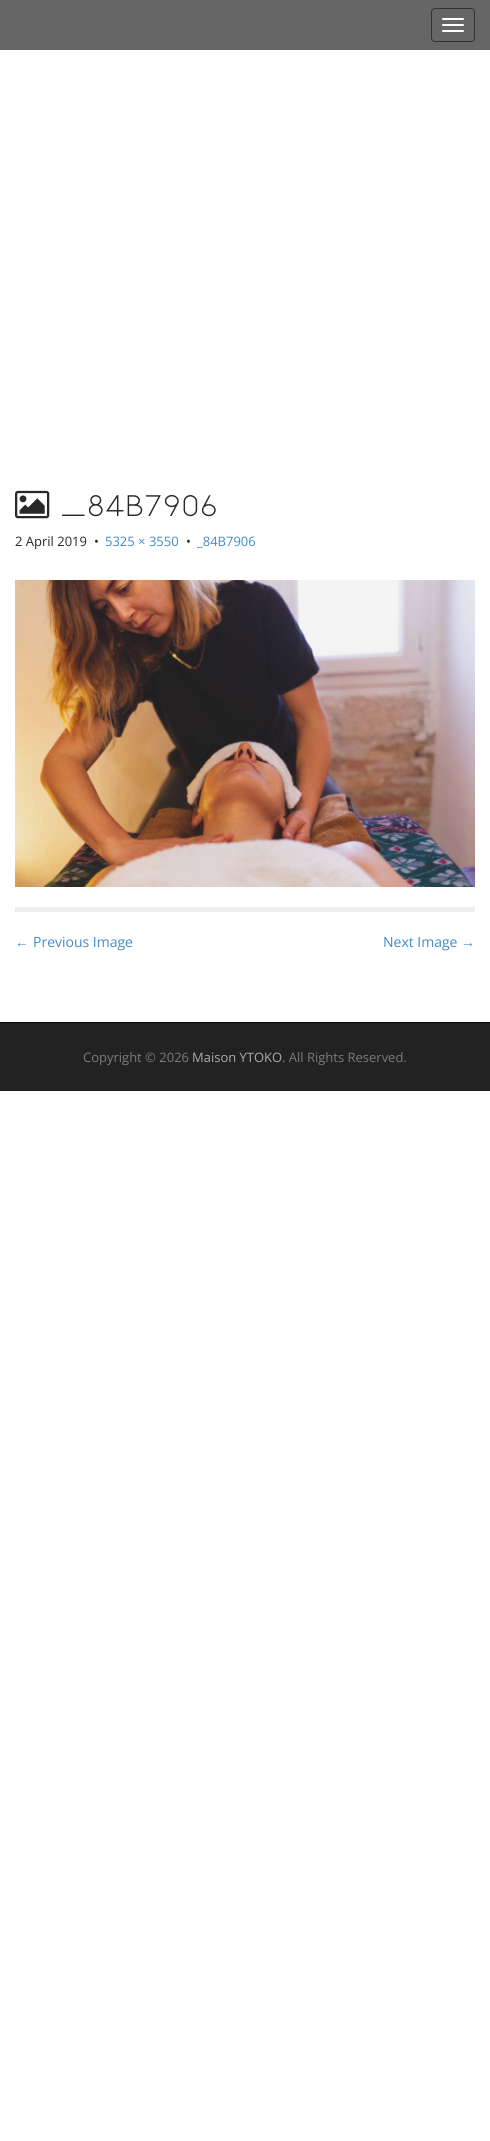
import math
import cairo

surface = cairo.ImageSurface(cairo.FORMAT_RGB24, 490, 2141)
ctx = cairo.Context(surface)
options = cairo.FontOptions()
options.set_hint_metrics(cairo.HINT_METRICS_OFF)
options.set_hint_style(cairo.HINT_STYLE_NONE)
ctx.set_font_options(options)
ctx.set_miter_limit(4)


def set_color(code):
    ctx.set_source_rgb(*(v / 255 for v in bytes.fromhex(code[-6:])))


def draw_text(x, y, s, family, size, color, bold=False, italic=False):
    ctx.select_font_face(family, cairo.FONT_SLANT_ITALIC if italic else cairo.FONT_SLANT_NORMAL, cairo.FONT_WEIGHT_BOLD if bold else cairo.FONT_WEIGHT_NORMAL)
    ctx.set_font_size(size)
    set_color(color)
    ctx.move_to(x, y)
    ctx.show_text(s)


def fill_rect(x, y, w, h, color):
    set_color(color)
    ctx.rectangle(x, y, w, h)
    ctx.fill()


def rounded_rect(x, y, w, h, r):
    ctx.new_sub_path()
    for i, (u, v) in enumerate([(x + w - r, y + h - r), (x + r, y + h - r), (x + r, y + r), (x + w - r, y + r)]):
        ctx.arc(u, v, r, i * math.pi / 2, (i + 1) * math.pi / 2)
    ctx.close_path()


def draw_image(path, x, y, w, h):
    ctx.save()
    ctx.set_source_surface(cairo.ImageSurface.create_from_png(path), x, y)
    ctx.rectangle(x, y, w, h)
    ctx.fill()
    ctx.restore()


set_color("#ffffff")
ctx.paint()
fill_rect(0, 0, 490, 50, "#666666")
rounded_rect(431.5, 8.5, 43, 33, 3.5)
set_color("#333333")
ctx.set_line_width(1)
ctx.stroke()
set_color("#ffffff")
rounded_rect(442, 18, 22, 2, 1)
ctx.fill()
rounded_rect(442, 24, 22, 2, 1)
ctx.fill()
rounded_rect(442, 30, 22, 2, 1)
ctx.fill()
fill_rect(15, 907, 460, 5, "#eeeeee")
draw_image("assets/img1.png", 15, 490, 35, 29)
draw_text(60, 516, "_84B7906", "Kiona", 32, "#282828")
draw_text(15, 546, "2 April 2019", "Open Sans", 13, "#282828")
draw_text(94, 546, "•", "Open Sans", 13, "#282828")
draw_text(105, 546, "5325 × 3550", "Open Sans", 13, "#428bca")
draw_text(186, 546, "•", "Open Sans", 13, "#282828")
draw_text(197, 546, "_84B7906", "Open Sans", 13, "#428bca")
draw_image("assets/img2.png", 15, 580, 460, 307)
draw_text(15, 947, "←", "Liberation Sans", 14, "#428bca")
draw_text(33, 947, "Previous Image", "Open Sans", 14, "#428bca")
draw_text(383, 947, "Next Image", "Open Sans", 14, "#428bca")
draw_text(461, 947, "→", "Liberation Sans", 14, "#428bca")
fill_rect(0, 1023, 490, 68, "#222222")
fill_rect(0, 1022, 490, 1, "#000000")
draw_text(83, 1062, "Copyright © 2026", "Open Sans", 13, "#7b7b7b")
draw_text(192, 1062, "Maison YTOKO", "Open Sans", 13, "#aaaaaa")
draw_text(282, 1062, ". All Rights Reserved.", "Open Sans", 13, "#7b7b7b")
surface.write_to_png("output.png")
